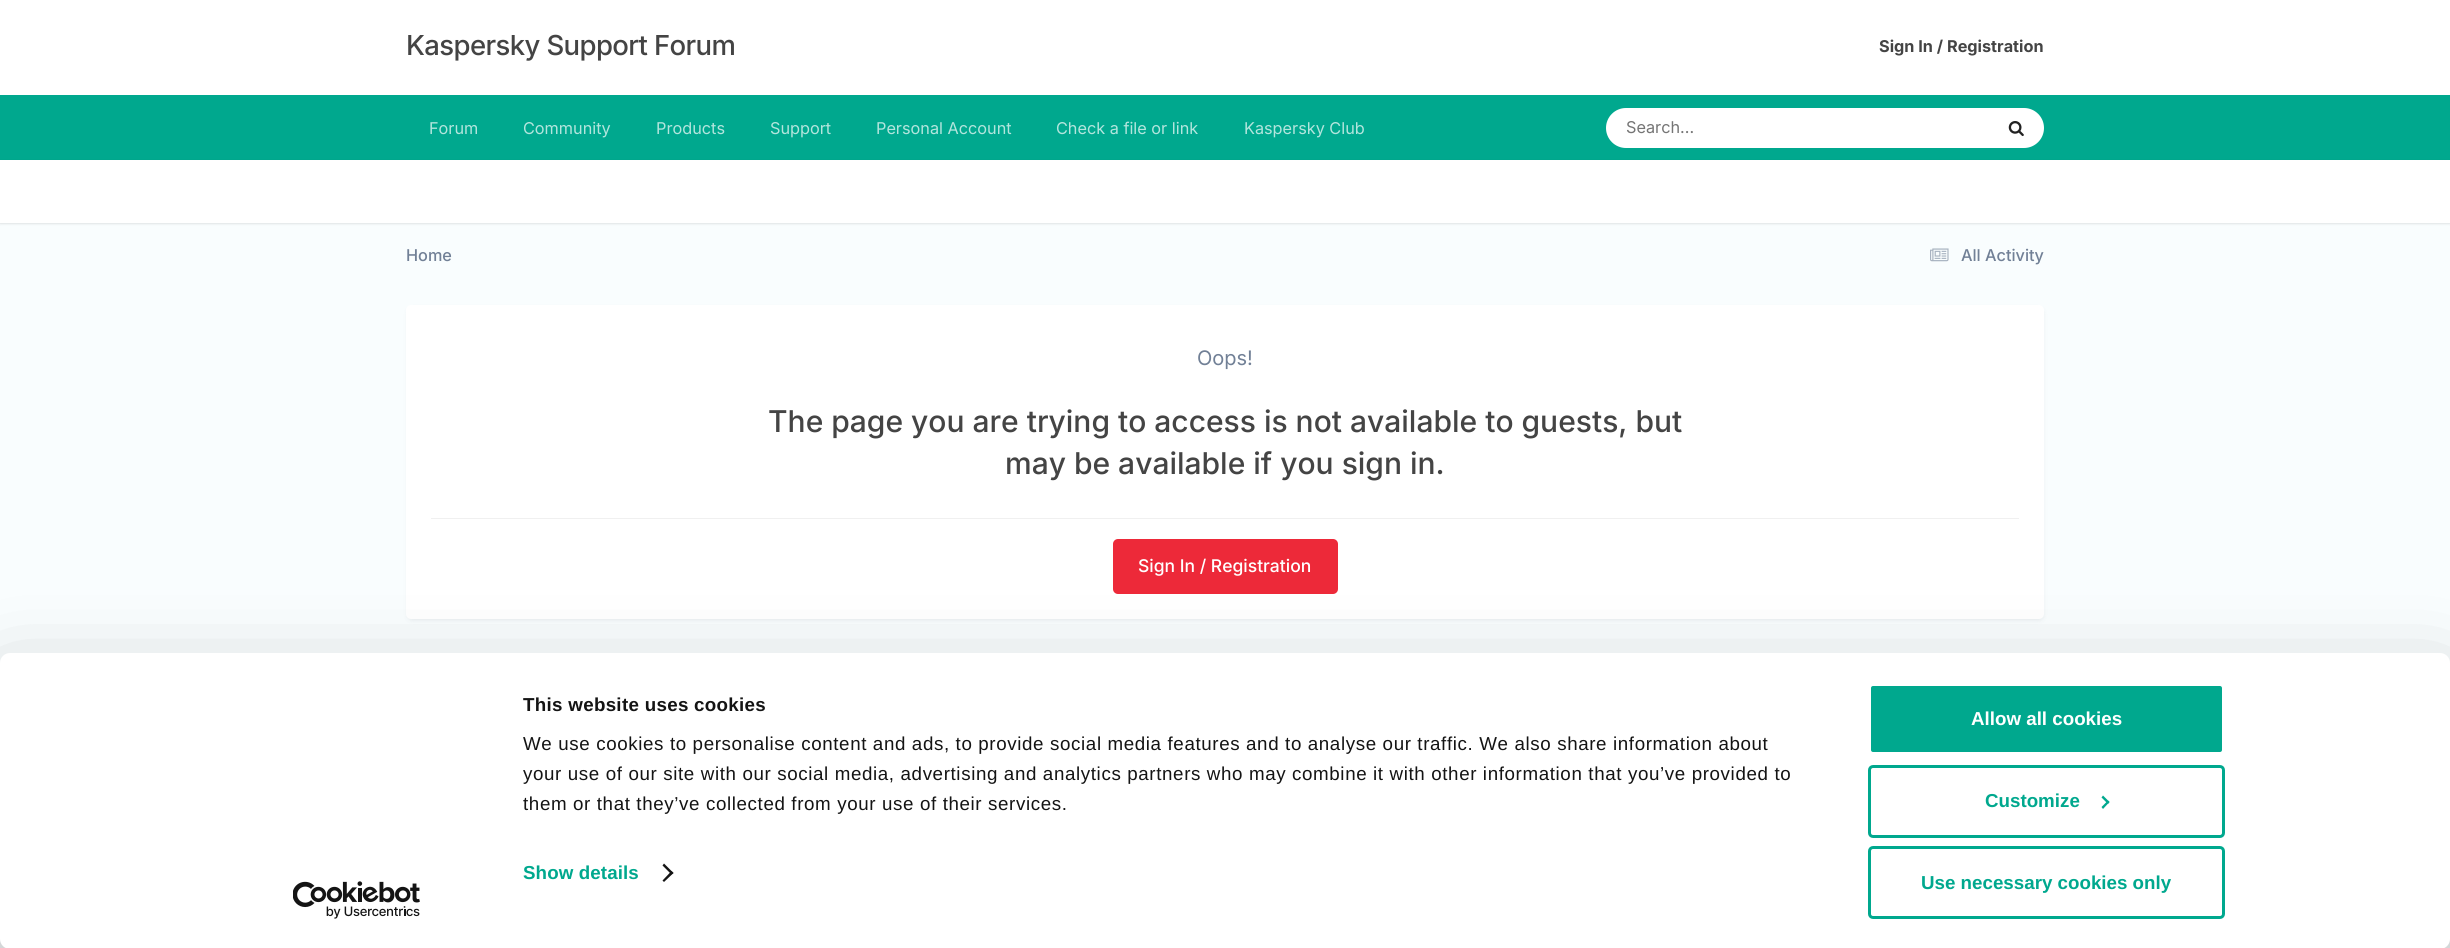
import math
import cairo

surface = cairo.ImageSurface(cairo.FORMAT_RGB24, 2450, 948)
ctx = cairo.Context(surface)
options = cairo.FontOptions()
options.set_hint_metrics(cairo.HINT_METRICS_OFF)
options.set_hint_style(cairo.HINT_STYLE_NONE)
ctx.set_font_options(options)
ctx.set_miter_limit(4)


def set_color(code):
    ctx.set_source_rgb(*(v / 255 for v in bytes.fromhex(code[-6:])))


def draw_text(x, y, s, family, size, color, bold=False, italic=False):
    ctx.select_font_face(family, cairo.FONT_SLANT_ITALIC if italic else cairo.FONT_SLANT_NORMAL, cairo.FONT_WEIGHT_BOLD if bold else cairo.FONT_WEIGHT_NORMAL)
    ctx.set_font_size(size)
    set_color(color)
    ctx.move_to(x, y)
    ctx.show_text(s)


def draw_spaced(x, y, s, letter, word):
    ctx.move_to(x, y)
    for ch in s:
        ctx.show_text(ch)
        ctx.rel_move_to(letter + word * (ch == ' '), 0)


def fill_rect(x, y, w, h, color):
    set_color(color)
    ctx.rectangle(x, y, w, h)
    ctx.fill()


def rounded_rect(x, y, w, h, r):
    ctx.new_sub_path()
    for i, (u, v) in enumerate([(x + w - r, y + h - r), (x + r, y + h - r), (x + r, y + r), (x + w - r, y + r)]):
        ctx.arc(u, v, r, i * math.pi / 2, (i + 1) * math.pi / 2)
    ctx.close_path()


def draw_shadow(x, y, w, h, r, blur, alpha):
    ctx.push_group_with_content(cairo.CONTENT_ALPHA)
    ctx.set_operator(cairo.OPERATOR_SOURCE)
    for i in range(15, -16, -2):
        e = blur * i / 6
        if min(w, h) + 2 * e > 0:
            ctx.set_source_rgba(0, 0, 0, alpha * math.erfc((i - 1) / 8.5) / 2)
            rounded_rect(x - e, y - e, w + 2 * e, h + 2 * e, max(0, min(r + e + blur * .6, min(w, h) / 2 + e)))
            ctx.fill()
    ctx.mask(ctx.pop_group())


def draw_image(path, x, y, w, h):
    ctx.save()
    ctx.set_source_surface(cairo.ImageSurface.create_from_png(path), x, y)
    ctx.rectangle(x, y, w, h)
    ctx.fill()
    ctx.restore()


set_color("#f9fdfe")
ctx.paint()
fill_rect(0, 0, 2450, 95, "#ffffff")
ctx.select_font_face("Inter Medium")
ctx.set_font_size(27.5)
set_color("#444444")
draw_spaced(406, 55, "Kaspersky Support Forum", -0.6, 0)
draw_text(1879, 52, "Sign In / Registration", "Inter", 16.25, "#444444", bold=True)
fill_rect(0, 95, 2450, 65, "#00a88e")
draw_text(429, 134, "Forum", "Inter", 16.25, "#b3e5dd")
draw_text(523, 134, "Community", "Inter", 16.25, "#b3e5dd")
draw_text(656, 134, "Products", "Inter", 16.25, "#b3e5dd")
draw_text(770, 134, "Support", "Inter", 16.25, "#b3e5dd")
draw_text(876, 134, "Personal Account", "Inter", 16.25, "#b3e5dd")
draw_text(1056, 134, "Check a file or link", "Inter", 16.25, "#b3e5dd")
draw_text(1244, 134, "Kaspersky Club", "Inter", 16.25, "#b3e5dd")
set_color("#ffffff")
rounded_rect(1606, 108, 438, 40, 20)
ctx.fill()
draw_text(1626, 133, "Search...", "Inter", 16.25, "#757575")
draw_image("assets/img1.png", 2008, 121, 16, 16)
set_color("#000000")
draw_shadow(0, 161, 2450, 63, 0, 1, 0.1)
fill_rect(0, 160, 2450, 63, "#ffffff")
draw_text(406, 261, "Home", "Inter Medium", 16.25, "#718096")
draw_image("assets/img2.png", 1930, 248, 19, 14)
draw_text(1961, 261, "All Activity", "Inter Medium", 16.25, "#718096")
set_color("#2d3748")
draw_shadow(408, 309, 1635, 311, 4, 2.5, 0.1)
set_color("#ffffff")
rounded_rect(406, 305, 1638, 314, 5)
ctx.fill()
draw_text(1197, 365, "Oops!", "Inter", 20, "#718096")
draw_text(768, 432, "The page you are trying to access is not available to guests, but", "Inter Medium", 30, "#444444")
draw_text(1005, 474, "may be available if you sign in.", "Inter Medium", 30, "#444444")
fill_rect(431, 518, 1588, 1, "#f0f0f0")
set_color("#ed2939")
rounded_rect(1113, 539, 225, 55, 5)
ctx.fill()
draw_text(1138, 572, "Sign In / Registration", "Inter Medium", 17.5, "#ffffff")
set_color("#000000")
draw_shadow(0, 690, 2450, 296, 10, 44, 0.3)
set_color("#ffffff")
rounded_rect(0, 653, 2450, 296, 10)
ctx.fill()
ctx.select_font_face("Liberation Sans", cairo.FONT_SLANT_NORMAL, cairo.FONT_WEIGHT_BOLD)
ctx.set_font_size(18.75)
set_color("#141414")
draw_spaced(523, 711, "This website uses cookies", 0.3, 0)
ctx.select_font_face("Liberation Sans")
draw_spaced(523, 750, "We use cookies to personalise content and ads, to provide social media features and to analyse our traffic. We also share information about", 0.62, 0)
draw_spaced(523, 780, "your use of our site with our social media, advertising and analytics partners who may combine it with other information that you’ve provided to", 0.62, 0)
draw_spaced(523, 810, "them or that they’ve collected from your use of their services.", 0.62, 0)
ctx.select_font_face("Liberation Sans", cairo.FONT_SLANT_NORMAL, cairo.FONT_WEIGHT_BOLD)
set_color("#00a88e")
draw_spaced(523, 879, "Show details", 0.1, 0)
set_color("#141414")
ctx.new_path()
ctx.move_to(664, 863.5)
ctx.line_to(673.5, 873)
ctx.line_to(671.5, 874.5)
ctx.line_to(662.5, 865.5)
ctx.close_path()
ctx.fill()
ctx.new_path()
ctx.move_to(671.5, 871)
ctx.line_to(673.5, 873)
ctx.line_to(664, 882)
ctx.line_to(662.5, 880.5)
ctx.close_path()
ctx.fill()
set_color("#00a88e")
rounded_rect(1869.5, 684.5, 354, 69, 3.5)
ctx.fill_preserve()
set_color("#ffffff")
ctx.set_line_width(3)
ctx.stroke()
draw_text(1971, 725, "Allow all cookies", "Liberation Sans", 18.75, "#ffffff", bold=True)
rounded_rect(1869.5, 766.5, 354, 70, 3.5)
set_color("#00a88e")
ctx.stroke()
draw_text(1985, 807, "Customize", "Liberation Sans", 18.75, "#00a88e", bold=True)
ctx.new_path()
ctx.move_to(2103, 795.5)
ctx.line_to(2109.5, 802)
ctx.line_to(2108, 804)
ctx.line_to(2101.5, 797.5)
ctx.close_path()
ctx.fill()
ctx.new_path()
ctx.move_to(2108, 800.5)
ctx.line_to(2109.5, 802)
ctx.line_to(2103, 809)
ctx.line_to(2101.5, 807)
ctx.close_path()
ctx.fill()
rounded_rect(1869.5, 847.5, 354, 70, 3.5)
ctx.stroke()
draw_text(1921, 889, "Use necessary cookies only", "Liberation Sans", 18.75, "#00a88e", bold=True)
draw_image("assets/img3.png", 293, 881, 127, 38)
surface.write_to_png("output.png")
